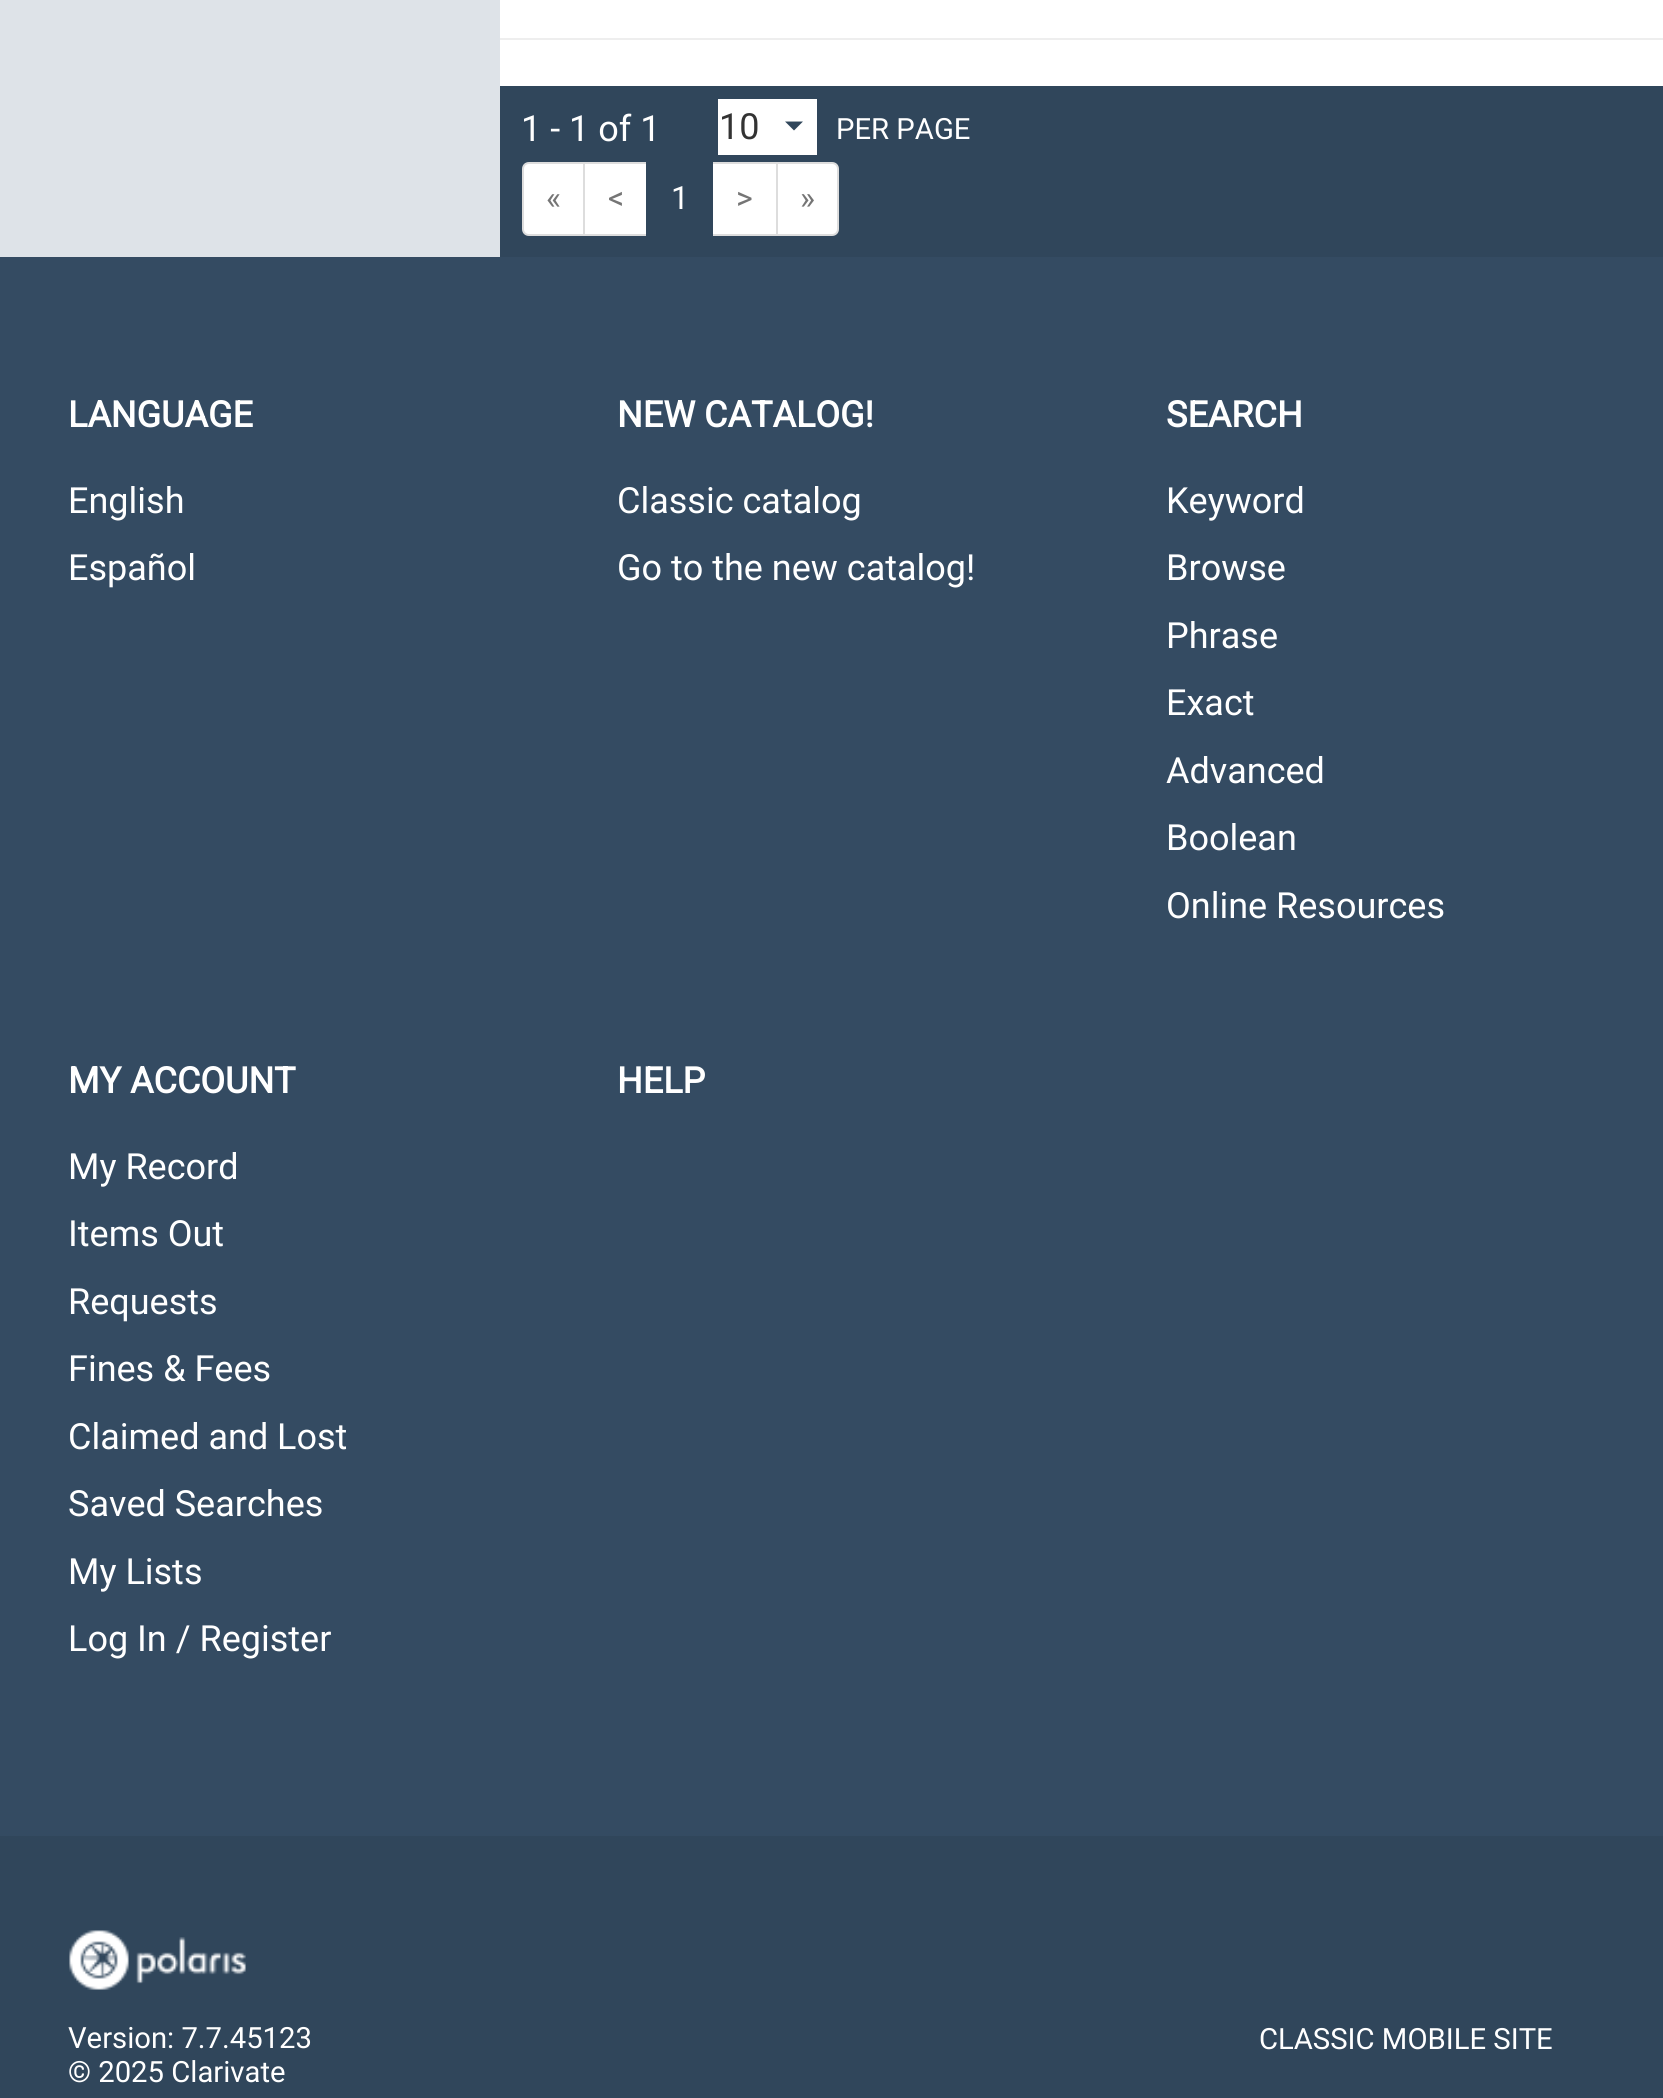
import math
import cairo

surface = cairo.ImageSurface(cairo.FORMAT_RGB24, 1663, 2098)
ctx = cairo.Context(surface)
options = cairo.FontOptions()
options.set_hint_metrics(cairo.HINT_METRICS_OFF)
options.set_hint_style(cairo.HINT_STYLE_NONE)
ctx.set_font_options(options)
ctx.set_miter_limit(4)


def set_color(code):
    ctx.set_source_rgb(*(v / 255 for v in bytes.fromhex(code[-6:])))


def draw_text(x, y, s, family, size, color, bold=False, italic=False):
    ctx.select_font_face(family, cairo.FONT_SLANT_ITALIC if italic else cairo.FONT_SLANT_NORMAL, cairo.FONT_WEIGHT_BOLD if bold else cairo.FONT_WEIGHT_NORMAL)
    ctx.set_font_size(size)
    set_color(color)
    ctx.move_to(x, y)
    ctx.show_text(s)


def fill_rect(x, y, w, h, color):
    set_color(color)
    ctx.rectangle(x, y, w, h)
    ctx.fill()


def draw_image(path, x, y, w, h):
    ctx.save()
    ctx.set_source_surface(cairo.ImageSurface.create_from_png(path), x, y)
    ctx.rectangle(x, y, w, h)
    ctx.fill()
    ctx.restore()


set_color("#dee3e8")
ctx.paint()
fill_rect(500, 0, 1163, 86, "#ffffff")
fill_rect(500, 38, 1163, 2, "#eeeeee")
fill_rect(500, 86, 1163, 171, "#30465b")
draw_text(521, 141, "1 - 1 of 1", "Roboto", 36, "#ffffff")
fill_rect(718, 99, 99, 56, "#ffffff")
draw_text(719, 139, "10", "Roboto", 36, "#333333")
set_color("#30465b")
ctx.new_path()
ctx.move_to(785, 121.5)
ctx.line_to(803, 121.5)
ctx.line_to(794, 130.5)
ctx.close_path()
ctx.fill()
draw_text(836, 139, "PER PAGE", "Roboto", 29.25, "#ffffff")
ctx.new_path()
ctx.move_to(529, 163)
ctx.line_to(584, 163)
ctx.line_to(584, 235)
ctx.line_to(529, 235)
ctx.curve_to(525.5, 235, 523, 232.5, 523, 229)
ctx.line_to(523, 169)
ctx.curve_to(523, 165.5, 525.5, 163, 529, 163)
ctx.close_path()
ctx.fill_preserve()
set_color("#dddddd")
ctx.stroke()
draw_text(546, 209, "«", "Roboto", 32, "#757575")
set_color("#ffffff")
ctx.rectangle(584, 163, 63, 72)
ctx.fill_preserve()
set_color("#dddddd")
ctx.stroke()
draw_text(608, 209, "<", "Roboto", 32, "#757575")
fill_rect(713, 164, 63, 70, "#ffffff")
ctx.rectangle(712, 163, 66, 72)
set_color("#dddddd")
ctx.stroke()
fill_rect(646, 162, 67, 74, "#30465b")
draw_text(671, 209, "1", "Roboto", 32, "#ffffff")
draw_text(736, 209, ">", "Roboto", 32, "#757575")
set_color("#ffffff")
ctx.new_path()
ctx.move_to(777, 163)
ctx.line_to(832, 163)
ctx.curve_to(835.5, 163, 838, 165.5, 838, 169)
ctx.line_to(838, 229)
ctx.curve_to(838, 232.5, 835.5, 235, 832, 235)
ctx.line_to(777, 235)
ctx.close_path()
ctx.fill_preserve()
set_color("#dddddd")
ctx.stroke()
draw_text(800, 209, "»", "Roboto", 32, "#757575")
fill_rect(0, 257, 1663, 1579, "#344b62")
draw_text(68, 427, "LANGUAGE", "Roboto", 36, "#ffffff", bold=True)
draw_text(68, 513, "English", "Roboto", 36, "#ffffff")
draw_text(68, 580, "Español", "Roboto", 36, "#ffffff")
draw_text(617, 427, "NEW CATALOG!", "Roboto", 36, "#ffffff", bold=True)
draw_text(617, 513, "Classic catalog", "Roboto", 36, "#ffffff")
draw_text(617, 580, "Go to the new catalog!", "Roboto", 36, "#ffffff")
draw_text(1166, 427, "SEARCH", "Roboto", 36, "#ffffff", bold=True)
draw_text(1166, 513, "Keyword", "Roboto", 36, "#ffffff")
draw_text(1166, 580, "Browse", "Roboto", 36, "#ffffff")
draw_text(1166, 648, "Phrase", "Roboto", 36, "#ffffff")
draw_text(1166, 715, "Exact", "Roboto", 36, "#ffffff")
draw_text(1166, 783, "Advanced", "Roboto", 36, "#ffffff")
draw_text(1166, 850, "Boolean", "Roboto", 36, "#ffffff")
draw_text(1166, 918, "Online Resources", "Roboto", 36, "#ffffff")
draw_text(68, 1093, "MY ACCOUNT", "Roboto", 36, "#ffffff", bold=True)
draw_text(68, 1179, "My Record", "Roboto", 36, "#ffffff")
draw_text(68, 1246, "Items Out", "Roboto", 36, "#ffffff")
draw_text(68, 1314, "Requests", "Roboto", 36, "#ffffff")
draw_text(68, 1381, "Fines & Fees", "Roboto", 36, "#ffffff")
draw_text(68, 1449, "Claimed and Lost", "Roboto", 36, "#ffffff")
draw_text(68, 1516, "Saved Searches", "Roboto", 36, "#ffffff")
draw_text(68, 1584, "My Lists", "Roboto", 36, "#ffffff")
draw_text(68, 1651, "Log In / Register", "Roboto", 36, "#ffffff")
draw_text(617, 1093, "HELP", "Roboto", 36, "#ffffff", bold=True)
fill_rect(0, 1836, 1663, 262, "#30465b")
draw_image("assets/img1.png", 69, 1930, 177, 60)
draw_text(68, 2048, "Version: 7.7.45123", "Roboto", 29.25, "#ffffff")
draw_text(68, 2082, "© 2025 Clarivate", "Roboto", 29.25, "#ffffff")
draw_text(1259, 2049, "CLASSIC MOBILE SITE", "Roboto", 29.25, "#ffffff")
surface.write_to_png("output.png")
